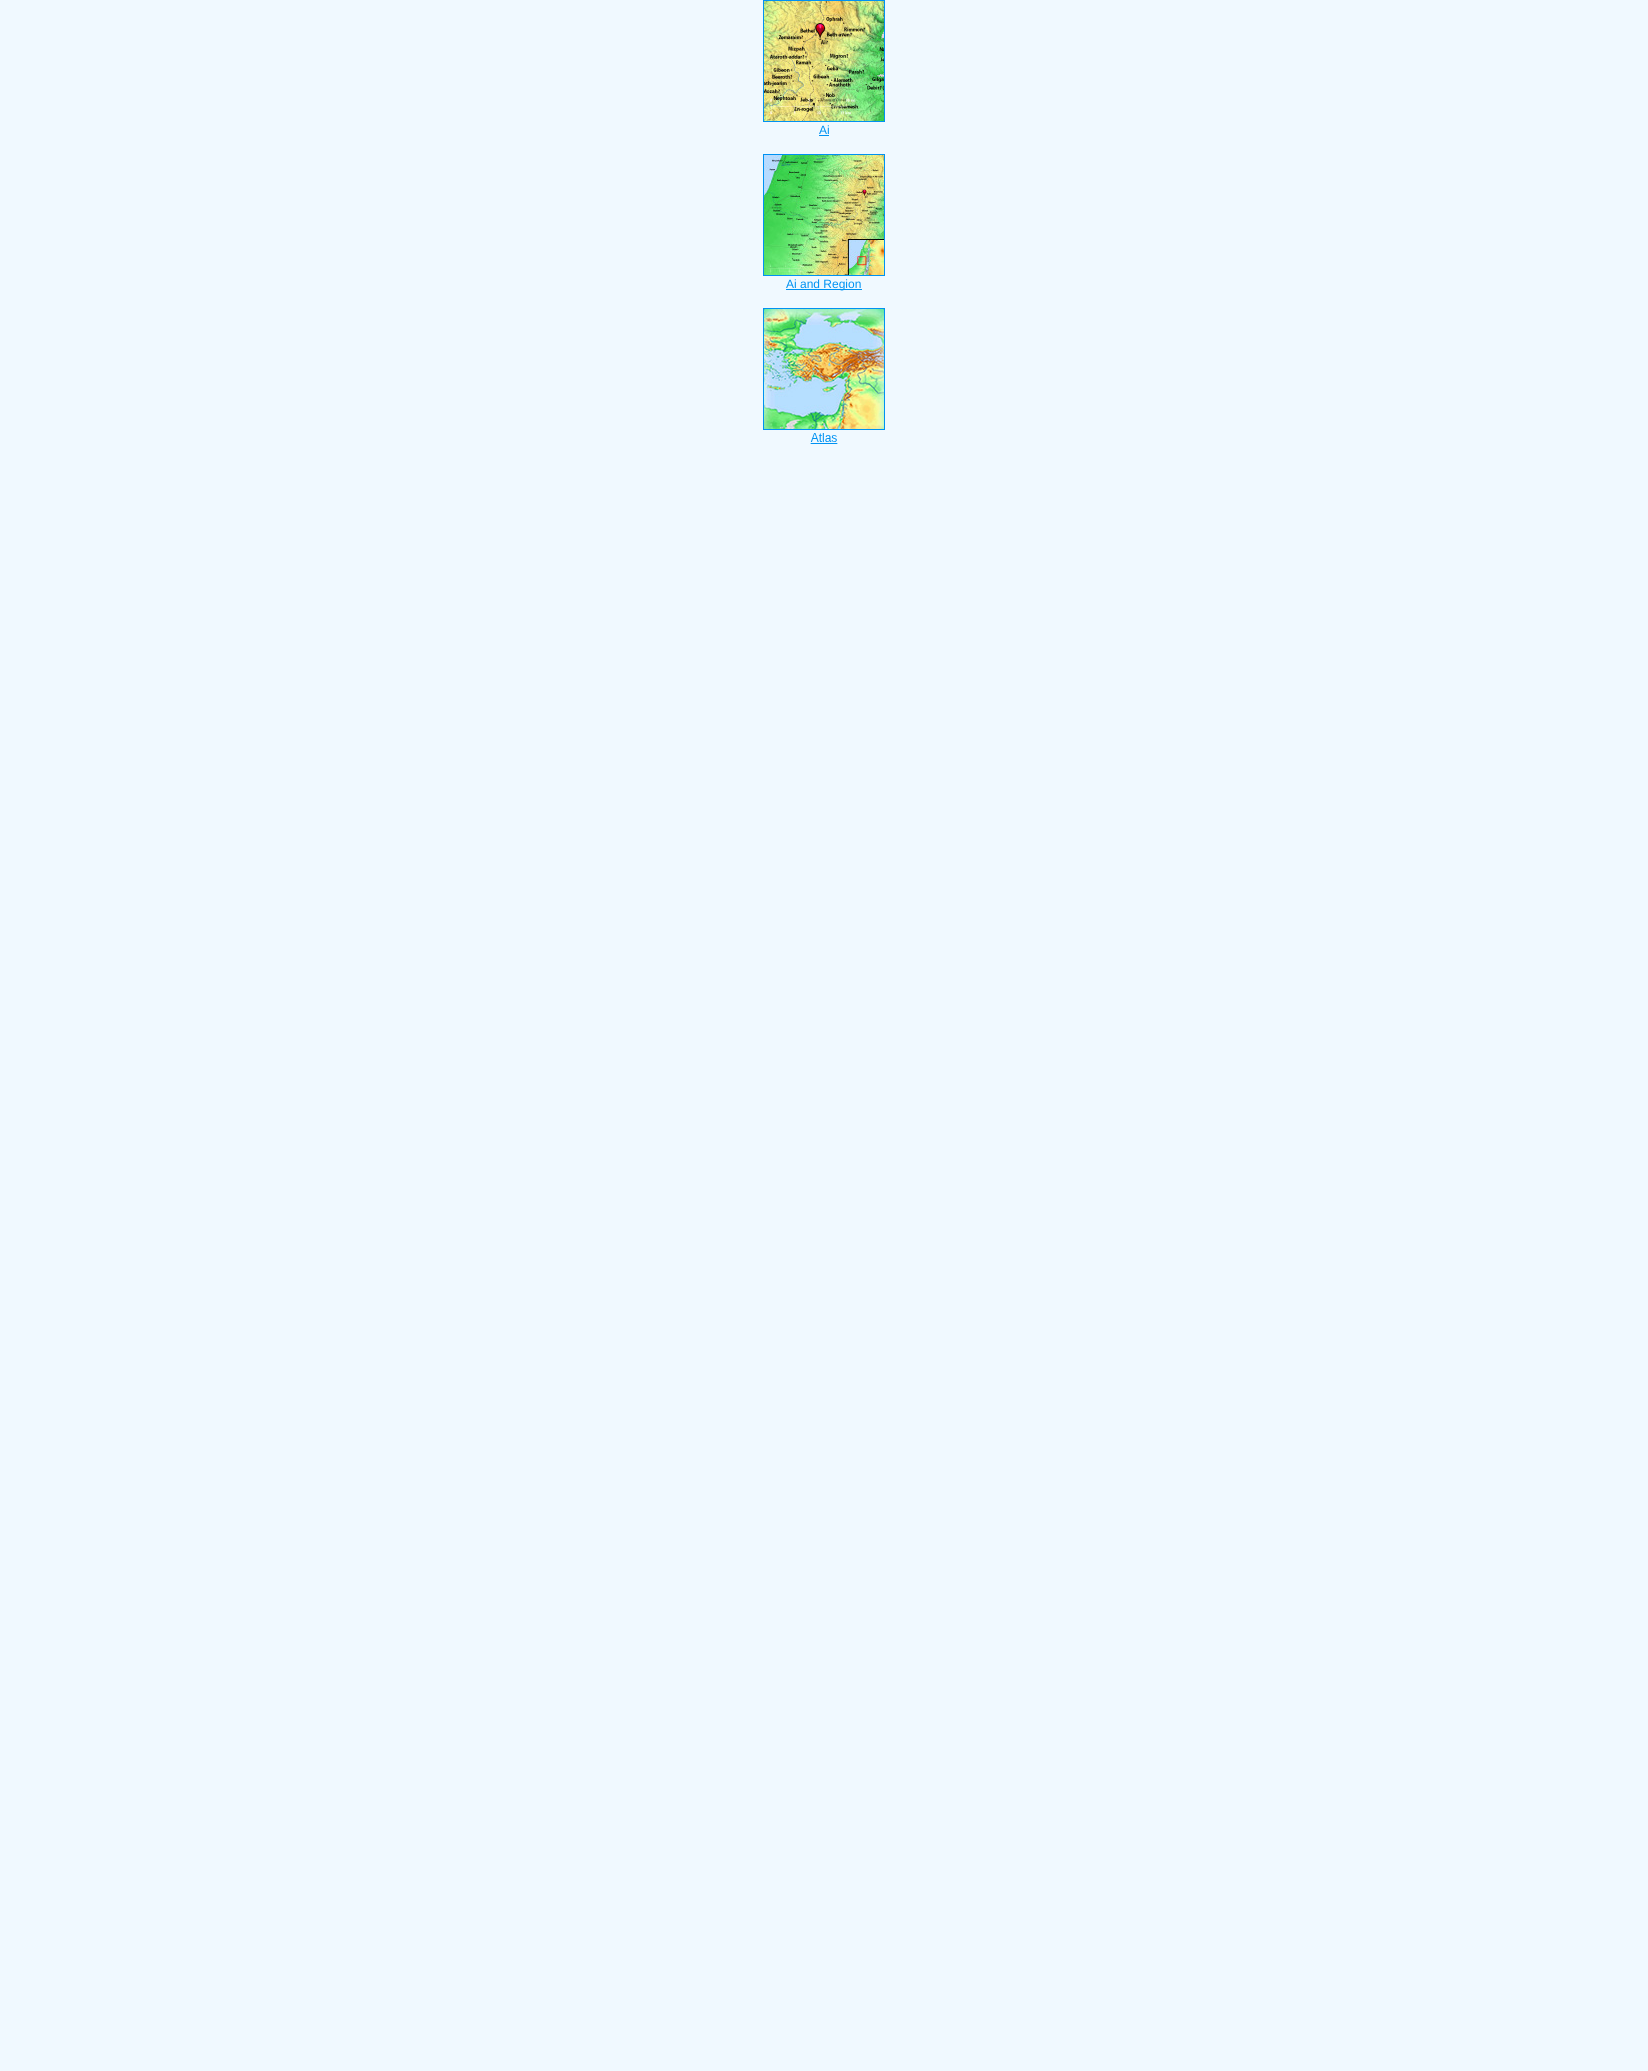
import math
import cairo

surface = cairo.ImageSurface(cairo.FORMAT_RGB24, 1648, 2071)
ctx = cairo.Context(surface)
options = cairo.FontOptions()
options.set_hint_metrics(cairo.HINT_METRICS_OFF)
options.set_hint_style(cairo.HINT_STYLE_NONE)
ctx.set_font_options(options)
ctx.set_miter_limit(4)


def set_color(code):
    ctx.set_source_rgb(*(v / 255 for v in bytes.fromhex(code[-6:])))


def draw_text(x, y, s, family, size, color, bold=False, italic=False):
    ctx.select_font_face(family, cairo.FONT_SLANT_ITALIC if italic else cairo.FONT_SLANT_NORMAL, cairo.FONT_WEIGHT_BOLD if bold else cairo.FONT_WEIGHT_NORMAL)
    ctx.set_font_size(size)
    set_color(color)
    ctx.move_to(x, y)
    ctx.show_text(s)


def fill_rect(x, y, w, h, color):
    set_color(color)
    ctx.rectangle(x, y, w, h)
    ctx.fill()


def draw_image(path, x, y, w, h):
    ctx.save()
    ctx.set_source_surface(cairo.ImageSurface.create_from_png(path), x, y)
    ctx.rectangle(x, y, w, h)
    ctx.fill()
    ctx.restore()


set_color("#f0f9ff")
ctx.paint()
ctx.rectangle(763.5, 0.5, 121, 121)
set_color("#0092f2")
ctx.set_line_width(1)
ctx.stroke()
draw_image("assets/img1.png", 764, 1, 120, 120)
draw_text(819, 134, "Ai", "Liberation Sans", 12, "#0092f2")
fill_rect(819, 135, 10, 1, "#0092f2")
ctx.rectangle(763.5, 154.5, 121, 121)
ctx.stroke()
draw_image("assets/img2.png", 764, 155, 120, 120)
fill_rect(786, 289, 76, 1, "#0092f2")
draw_text(786, 288, "Ai and Region", "Liberation Sans", 12, "#0092f2")
draw_image("assets/img3.png", 763, 308, 122, 136)
surface.write_to_png("output.png")
